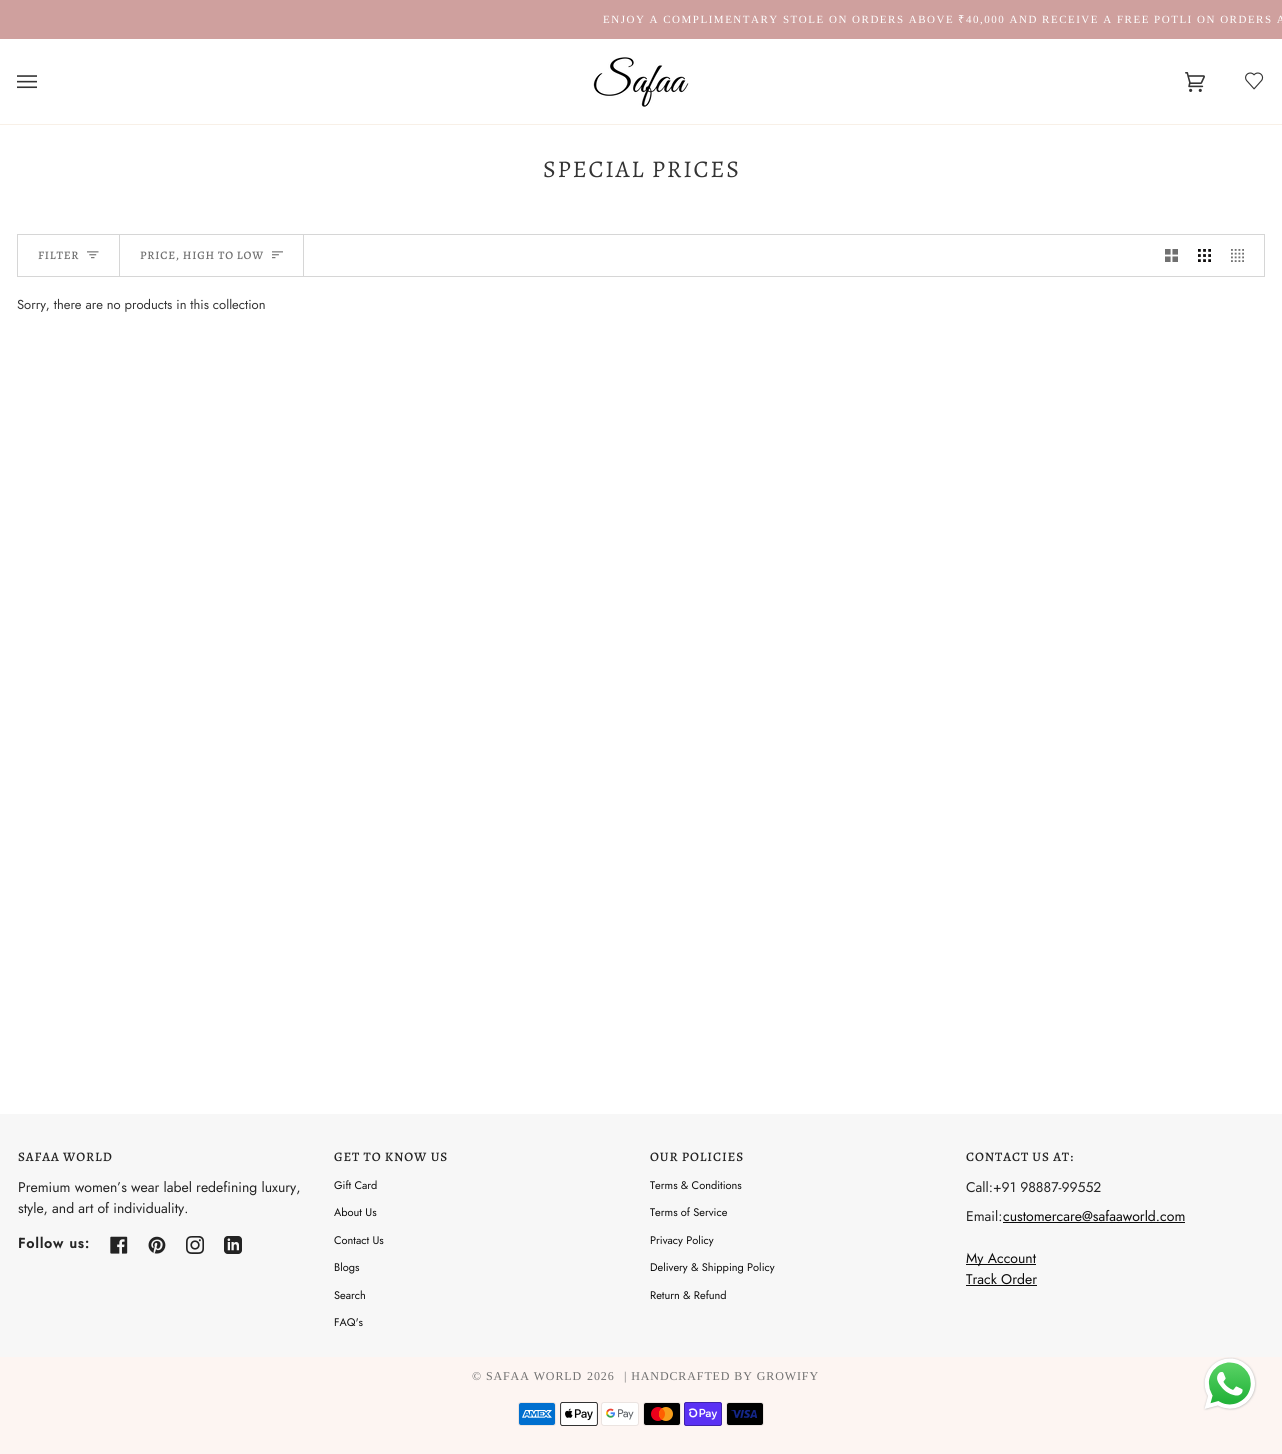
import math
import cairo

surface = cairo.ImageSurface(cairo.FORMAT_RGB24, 1282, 1454)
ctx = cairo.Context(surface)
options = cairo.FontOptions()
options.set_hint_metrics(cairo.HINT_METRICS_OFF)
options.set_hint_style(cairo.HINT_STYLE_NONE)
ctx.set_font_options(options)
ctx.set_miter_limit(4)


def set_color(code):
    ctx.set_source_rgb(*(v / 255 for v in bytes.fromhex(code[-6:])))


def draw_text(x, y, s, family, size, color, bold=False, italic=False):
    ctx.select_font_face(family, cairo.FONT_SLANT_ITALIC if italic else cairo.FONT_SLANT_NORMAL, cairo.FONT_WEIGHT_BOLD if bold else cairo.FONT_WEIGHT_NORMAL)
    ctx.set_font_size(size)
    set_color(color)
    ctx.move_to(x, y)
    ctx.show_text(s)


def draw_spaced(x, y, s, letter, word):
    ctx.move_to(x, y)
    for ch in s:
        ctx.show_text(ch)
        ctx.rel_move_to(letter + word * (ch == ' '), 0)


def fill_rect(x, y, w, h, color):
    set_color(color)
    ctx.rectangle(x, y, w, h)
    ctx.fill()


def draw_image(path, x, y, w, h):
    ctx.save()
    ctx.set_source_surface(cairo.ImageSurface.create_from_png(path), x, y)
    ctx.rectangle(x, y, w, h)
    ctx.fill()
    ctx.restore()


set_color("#ffffff")
ctx.paint()
fill_rect(0, 0, 1282, 39, "#cfa09e")
ctx.select_font_face("Liberation Serif")
ctx.set_font_size(11)
set_color("#ffffff")
draw_spaced(603, 23, "ENJOY A COMPLIMENTARY STOLE ON ORDERS ABOVE", 1.5, 0)
ctx.select_font_face("Noto Sans")
draw_spaced(958, 23, "₹", 1.5, 0)
ctx.select_font_face("Liberation Serif")
draw_spaced(966, 23, "40,000 AND RECEIVE A FREE POTLI ON ORDERS A", 1.5, 0)
fill_rect(0, 124, 1282, 1, "#f8f0e7")
draw_image("assets/img1.png", 17, 75, 20, 14)
draw_image("assets/img2.png", 593, 57, 96, 50)
draw_image("assets/img3.png", 1185, 72, 20, 20)
draw_image("assets/img4.png", 1245, 72, 19, 18)
ctx.select_font_face("Alegreya")
ctx.set_font_size(24)
set_color("#333333")
draw_spaced(543, 177, "SPECIAL PRICES", 1.75, 0)
ctx.rectangle(17.5, 234.5, 1247, 42)
set_color("#d6d6d6")
ctx.set_line_width(1)
ctx.stroke()
fill_rect(119, 235, 1, 41, "#d6d6d6")
ctx.select_font_face("Alegreya Medium")
ctx.set_font_size(11.5)
set_color("#707070")
draw_spaced(38, 259, "FILTER", 0.8, 0)
draw_image("assets/img5.png", 87, 251, 12, 8)
fill_rect(303, 235, 1, 41, "#d6d6d6")
set_color("#707070")
draw_spaced(140, 259, "PRICE, HIGH TO LOW", 0.8, 0)
draw_image("assets/img6.png", 272, 251, 11, 8)
draw_image("assets/img7.png", 1165, 249, 13, 13)
draw_image("assets/img8.png", 1198, 249, 13, 13)
draw_image("assets/img9.png", 1231, 249, 13, 13)
draw_text(17, 309, "Sorry, there are no products in this collection", "Jost", 13, "#333333")
fill_rect(0, 1114, 1282, 243, "#f7f7f7")
ctx.select_font_face("Alegreya Medium")
set_color("#242424")
draw_spaced(18, 1161, "SAFAA WORLD", 0.9, 0)
draw_text(18, 1192, "Premium women’s wear label redefining luxury,", "Jost", 14, "#242424")
draw_text(18, 1213, "style, and art of individuality.", "Jost", 14, "#242424")
ctx.select_font_face("Jost", cairo.FONT_SLANT_NORMAL, cairo.FONT_WEIGHT_BOLD)
draw_spaced(18, 1248, "Follow us:", 1, 0)
draw_image("assets/img10.png", 110, 1236, 18, 18)
draw_image("assets/img11.png", 148, 1236, 18, 18)
draw_image("assets/img12.png", 186, 1236, 18, 18)
draw_image("assets/img13.png", 224, 1236, 18, 18)
ctx.select_font_face("Alegreya Medium")
ctx.set_font_size(13)
draw_spaced(334, 1161, "GET TO KNOW US", 0.9, 0)
draw_text(334, 1189, "Gift Card", "Jost", 11, "#0c0c0c")
draw_text(334, 1216, "About Us", "Jost", 11, "#0c0c0c")
draw_text(334, 1244, "Contact Us", "Jost", 11, "#0c0c0c")
draw_text(334, 1271, "Blogs", "Jost", 11, "#0c0c0c")
draw_text(334, 1299, "Search", "Jost", 11, "#0c0c0c")
draw_text(334, 1326, "FAQ's", "Jost", 11, "#0c0c0c")
ctx.select_font_face("Alegreya Medium")
ctx.set_font_size(13)
set_color("#242424")
draw_spaced(650, 1161, "OUR POLICIES", 0.9, 0)
draw_text(650, 1189, "Terms & Conditions", "Jost", 11, "#0c0c0c")
draw_text(650, 1216, "Terms of Service", "Jost", 11, "#0c0c0c")
draw_text(650, 1244, "Privacy Policy", "Jost", 11, "#0c0c0c")
draw_text(650, 1271, "Delivery & Shipping Policy", "Jost", 11, "#0c0c0c")
draw_text(650, 1299, "Return & Refund", "Jost", 11, "#0c0c0c")
ctx.select_font_face("Alegreya Medium")
ctx.set_font_size(13)
set_color("#242424")
draw_spaced(966, 1161, "CONTACT US AT:", 0.9, 0)
draw_text(966, 1192, "Call:+91 98887-99552", "Jost", 14, "#242424")
draw_text(966, 1221, "Email:", "Jost", 14, "#242424")
draw_text(1003, 1221, "customercare@safaaworld.com", "Jost", 14, "#0c0c0c")
fill_rect(1003, 1222, 182, 1, "#0c0c0c")
fill_rect(966, 1264, 70, 1, "#0c0c0c")
draw_text(966, 1263, "My Account", "Jost", 14, "#0c0c0c")
draw_text(966, 1284, "Track Order", "Jost", 14, "#0c0c0c")
fill_rect(966, 1285, 71, 1, "#0c0c0c")
fill_rect(0, 1357, 1282, 97, "#fdf5f2")
ctx.select_font_face("Liberation Serif")
ctx.set_font_size(12)
set_color("#707070")
draw_spaced(472, 1380, "© SAFAA WORLD", 0.9, 0)
draw_spaced(587, 1380, "2026", 0.9, 0)
draw_spaced(624, 1380, "| HANDCRAFTED BY GROWIFY", 0.9, 0)
draw_image("assets/img14.png", 518, 1402, 38, 24)
draw_image("assets/img15.png", 560, 1402, 38, 24)
draw_image("assets/img16.png", 601, 1402, 38, 24)
draw_image("assets/img17.png", 643, 1402, 38, 24)
draw_image("assets/img18.png", 684, 1402, 38, 24)
draw_image("assets/img19.png", 726, 1402, 38, 24)
draw_image("assets/img20.png", 1203, 1357, 54, 54)
surface.write_to_png("output.png")
